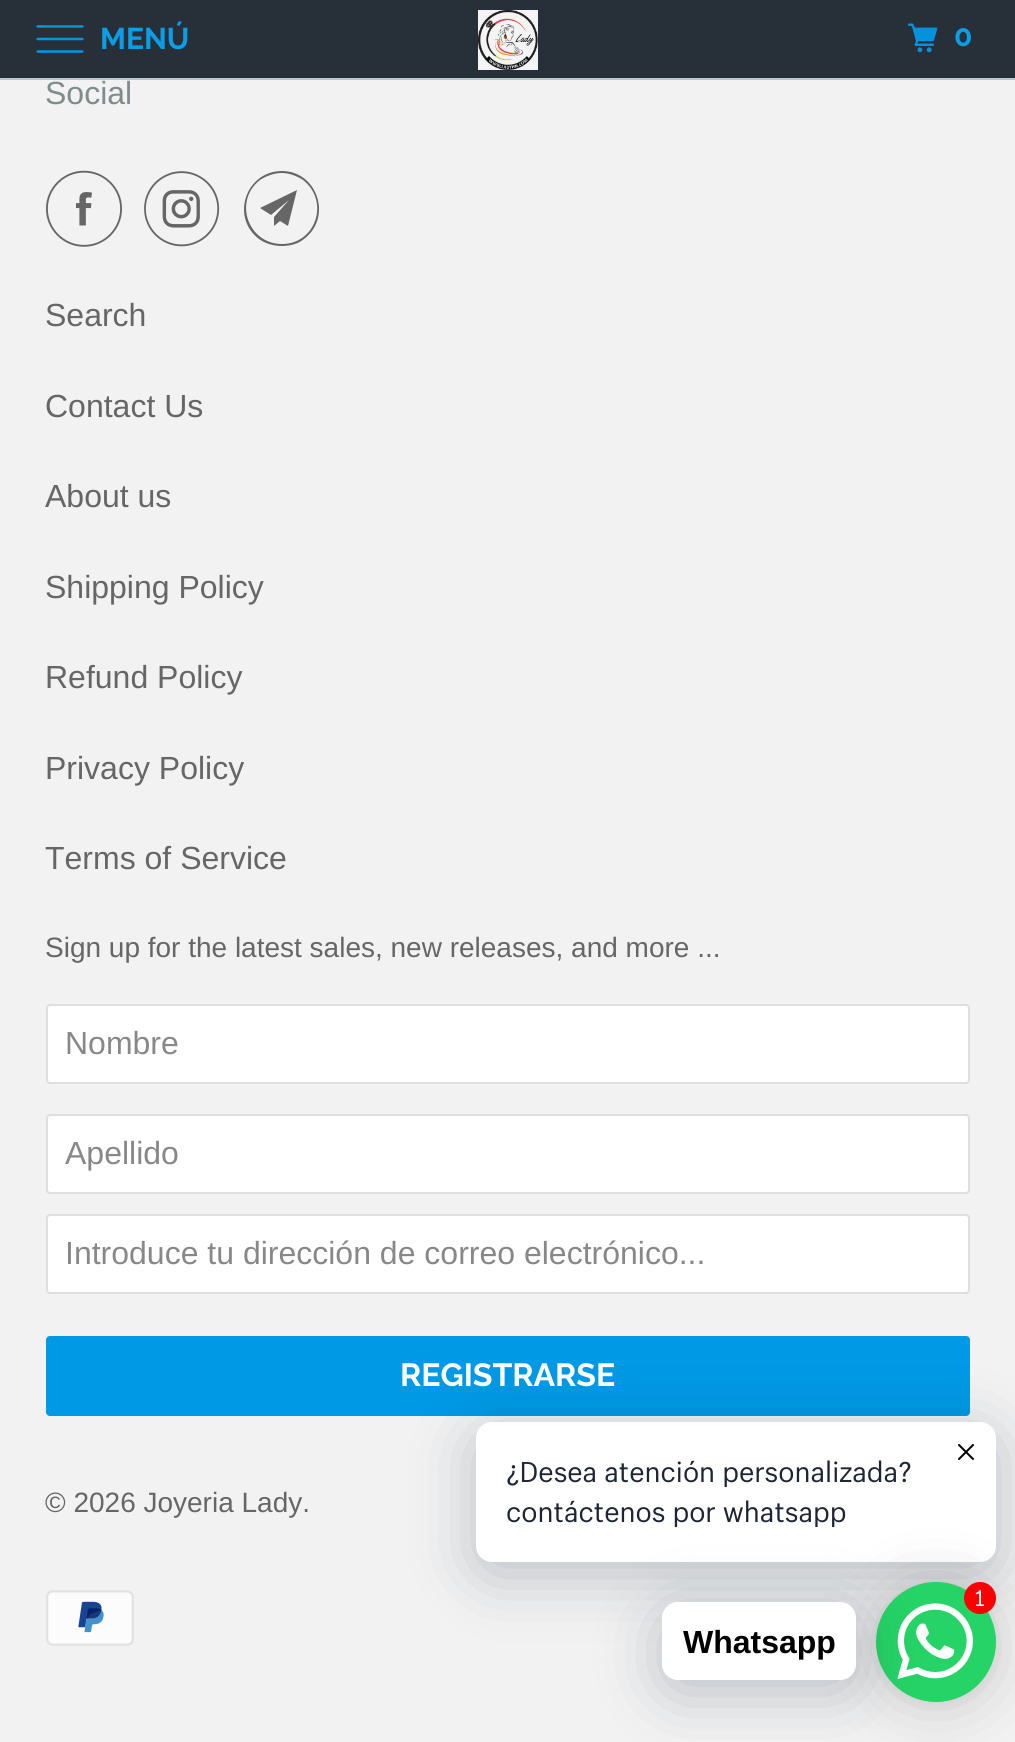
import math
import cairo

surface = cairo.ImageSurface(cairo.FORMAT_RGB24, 1015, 1742)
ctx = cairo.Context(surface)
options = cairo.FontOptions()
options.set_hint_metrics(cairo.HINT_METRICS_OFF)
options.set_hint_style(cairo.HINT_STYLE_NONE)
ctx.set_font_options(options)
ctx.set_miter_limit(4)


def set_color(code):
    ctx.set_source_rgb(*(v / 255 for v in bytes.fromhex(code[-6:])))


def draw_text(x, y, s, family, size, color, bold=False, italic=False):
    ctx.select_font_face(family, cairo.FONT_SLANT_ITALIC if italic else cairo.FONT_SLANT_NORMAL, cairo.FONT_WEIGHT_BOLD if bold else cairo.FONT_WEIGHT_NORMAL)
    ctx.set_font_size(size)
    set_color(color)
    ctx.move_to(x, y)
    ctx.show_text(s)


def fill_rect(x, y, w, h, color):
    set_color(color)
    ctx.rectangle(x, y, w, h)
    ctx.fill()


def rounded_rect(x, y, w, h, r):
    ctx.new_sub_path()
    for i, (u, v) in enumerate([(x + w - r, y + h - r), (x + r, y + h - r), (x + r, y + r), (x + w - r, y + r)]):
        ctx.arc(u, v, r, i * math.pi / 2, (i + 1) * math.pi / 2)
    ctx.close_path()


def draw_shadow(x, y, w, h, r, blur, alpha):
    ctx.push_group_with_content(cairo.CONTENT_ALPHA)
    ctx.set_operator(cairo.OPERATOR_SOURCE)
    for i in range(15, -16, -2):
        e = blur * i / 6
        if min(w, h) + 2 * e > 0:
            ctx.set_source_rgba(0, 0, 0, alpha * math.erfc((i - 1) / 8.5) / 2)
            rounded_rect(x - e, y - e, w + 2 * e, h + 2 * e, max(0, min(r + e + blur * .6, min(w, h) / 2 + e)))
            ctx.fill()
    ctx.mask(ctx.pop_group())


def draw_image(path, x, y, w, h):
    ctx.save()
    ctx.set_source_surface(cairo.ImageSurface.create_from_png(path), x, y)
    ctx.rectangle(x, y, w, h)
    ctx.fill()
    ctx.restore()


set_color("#f2f2f2")
ctx.paint()
fill_rect(0, 0, 1015, 78, "#273039")
fill_rect(0, 78, 1015, 2, "#bbc8c8")
draw_image("assets/img1.png", 36, 25, 48, 28)
draw_text(100, 49, "MENÚ", "Raleway", 30, "#0c9de6", bold=True)
draw_image("assets/img2.png", 478, 10, 60, 60)
draw_image("assets/img3.png", 908, 23, 30, 30)
draw_text(954, 46, "0", "Raleway", 30, "#0c9de6", bold=True)
draw_text(45, 104, "Social", "Liberation Sans", 32, "#7f8c8d")
draw_image("assets/img4.png", 46, 170, 76, 77)
draw_image("assets/img5.png", 144, 171, 76, 76)
set_color("#666666")
ctx.new_path()
ctx.move_to(288, 226)
ctx.line_to(280, 221)
ctx.line_to(274, 226)
ctx.line_to(274, 217)
ctx.line_to(289, 200)
ctx.line_to(271, 215)
ctx.line_to(260, 208)
ctx.line_to(297, 190)
ctx.close_path()
ctx.move_to(282, 173)
ctx.curve_to(274, 173, 266, 176, 260, 180)
ctx.curve_to(233, 201, 248, 244, 282, 244)
ctx.curve_to(316, 244, 330, 201, 303, 180)
ctx.curve_to(297, 176, 289, 173, 282, 173)
ctx.close_path()
ctx.move_to(282, 246)
ctx.curve_to(274, 246, 266, 244, 259, 239)
ctx.curve_to(230, 217, 246, 171, 282, 171)
ctx.curve_to(317, 171, 333, 217, 304, 239)
ctx.curve_to(298, 244, 290, 246, 282, 246)
ctx.close_path()
ctx.fill()
draw_text(45, 326, "Search", "Liberation Sans", 32, "#666666")
draw_text(45, 417, "Contact Us", "Liberation Sans", 32, "#666666")
draw_text(45, 507, "About us", "Liberation Sans", 32, "#666666")
draw_text(45, 598, "Shipping Policy", "Liberation Sans", 32, "#666666")
draw_text(45, 688, "Refund Policy", "Liberation Sans", 32, "#666666")
draw_text(45, 779, "Privacy Policy", "Liberation Sans", 32, "#666666")
draw_text(45, 869, "Terms of Service", "Liberation Sans", 32, "#666666")
draw_text(45, 957, "Sign up for the latest sales, new releases, and more ...", "Liberation Sans", 28, "#666666")
set_color("#ffffff")
rounded_rect(47, 1005, 922, 78, 3)
ctx.fill_preserve()
set_color("#dfdfdf")
ctx.stroke()
draw_text(65, 1054, "Nombre", "Liberation Sans", 32, "#888888")
set_color("#ffffff")
rounded_rect(47, 1115, 922, 78, 3)
ctx.fill_preserve()
set_color("#dfdfdf")
ctx.stroke()
draw_text(65, 1164, "Apellido", "Liberation Sans", 32, "#888888")
set_color("#ffffff")
rounded_rect(47, 1215, 922, 78, 3)
ctx.fill_preserve()
set_color("#dfdfdf")
ctx.stroke()
draw_text(65, 1264, "Introduce tu dirección de correo electrónico...", "Liberation Sans", 32, "#888888")
set_color("#0099e5")
rounded_rect(46, 1336, 924, 80, 4)
ctx.fill()
draw_text(400, 1386, "REGISTRARSE", "Raleway", 32, "#ffffff", bold=True)
draw_text(45, 1512, "© 2026 Joyeria Lady.", "Liberation Sans", 28, "#666666")
draw_image("assets/img6.png", 46, 1590, 88, 56)
set_color("#00122e")
draw_shadow(476, 1434, 520, 140, 16, 32, 0.24)
set_color("#ffffff")
rounded_rect(476, 1422, 520, 140, 16)
ctx.fill()
draw_image("assets/img7.png", 958, 1444, 16, 16)
draw_text(506, 1482, "¿Desea atención personalizada?", "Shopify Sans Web", 28, "#1e2433")
draw_text(506, 1522, "contáctenos por whatsapp", "Shopify Sans Web", 28, "#1e2433")
set_color("#000000")
draw_shadow(876, 1586, 120, 120, 60, 32, 0.16)
draw_shadow(876, 1584, 120, 120, 60, 6, 0.06)
set_color("#25d366")
ctx.arc(936, 1642, 60, 0, 2 * math.pi)
ctx.fill()
set_color("#00122e")
draw_shadow(662, 1614, 194, 78, 16, 32, 0.24)
draw_image("assets/img8.png", 897, 1603, 76, 76)
set_color("#ff0000")
ctx.arc(980, 1598, 16, 0, 2 * math.pi)
ctx.fill()
draw_text(975, 1606, "1", "Shopify Sans Web", 22, "#ffffff")
rounded_rect(662, 1602, 194, 78, 16)
ctx.fill()
draw_text(683, 1653, "Whatsapp", "Liberation Sans", 32, "#000000", bold=True)
surface.write_to_png("output.png")
